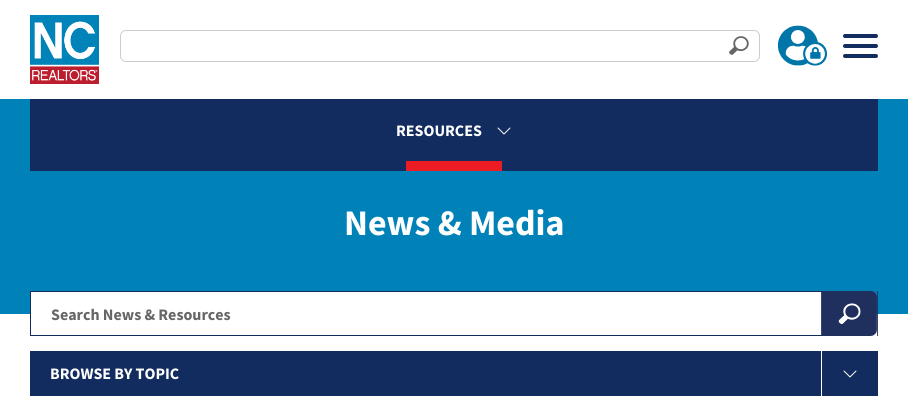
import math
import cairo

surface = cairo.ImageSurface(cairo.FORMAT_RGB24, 908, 411)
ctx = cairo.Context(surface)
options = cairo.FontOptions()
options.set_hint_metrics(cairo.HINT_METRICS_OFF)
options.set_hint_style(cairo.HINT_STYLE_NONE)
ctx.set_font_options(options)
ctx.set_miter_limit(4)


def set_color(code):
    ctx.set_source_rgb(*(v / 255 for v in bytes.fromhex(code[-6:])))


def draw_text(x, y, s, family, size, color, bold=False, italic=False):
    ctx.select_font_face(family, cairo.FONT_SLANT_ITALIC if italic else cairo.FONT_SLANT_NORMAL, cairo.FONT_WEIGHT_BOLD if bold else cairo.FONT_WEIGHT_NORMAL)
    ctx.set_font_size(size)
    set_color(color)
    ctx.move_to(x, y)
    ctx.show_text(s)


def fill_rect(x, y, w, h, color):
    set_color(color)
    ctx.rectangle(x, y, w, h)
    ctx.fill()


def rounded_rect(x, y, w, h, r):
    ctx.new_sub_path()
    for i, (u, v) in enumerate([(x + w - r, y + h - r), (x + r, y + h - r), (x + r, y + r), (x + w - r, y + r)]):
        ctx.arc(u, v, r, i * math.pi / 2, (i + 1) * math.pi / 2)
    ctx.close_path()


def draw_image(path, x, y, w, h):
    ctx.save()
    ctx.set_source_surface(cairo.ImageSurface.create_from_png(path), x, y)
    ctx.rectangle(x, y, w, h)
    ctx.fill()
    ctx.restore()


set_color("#ffffff")
ctx.paint()
draw_image("assets/img1.png", 30, 15, 69, 69)
rounded_rect(120.5, 30.5, 639, 31, 5.5)
set_color("#cccccc")
ctx.set_line_width(1)
ctx.stroke()
fill_rect(121, 34, 1, 1, "#ffffff")
draw_image("assets/img2.png", 729, 36, 20, 19)
draw_image("assets/img3.png", 778, 25, 49, 41)
set_color("#122c5f")
rounded_rect(843, 34, 35, 4, 2)
ctx.fill()
rounded_rect(843, 44, 35, 4, 2)
ctx.fill()
rounded_rect(843, 54, 35, 4, 2)
ctx.fill()
fill_rect(0, 99, 908, 215, "#0082b9")
fill_rect(30, 99, 848, 72, "#122c5f")
draw_text(396, 136, "RESOURCES", "Source Sans Pro", 16, "#ffffff", bold=True)
draw_image("assets/img4.png", 497, 127, 14, 8)
fill_rect(406, 161, 96, 10, "#ed1c24")
draw_text(344, 235, "News & Media", "Source Sans Pro", 36, "#ffffff", bold=True)
fill_rect(31, 292, 791, 22, "#ffffff")
ctx.rectangle(30.5, 291.5, 803, 44)
set_color("#122c5f")
ctx.stroke()
draw_text(51, 320, "Search News & Resources", "Source Sans Pro", 16, "#666666", bold=True)
draw_image("assets/img5.png", 821, 291, 57, 45)
fill_rect(30, 351, 848, 45, "#122c5f")
draw_text(50, 379, "BROWSE BY TOPIC", "Source Sans Pro", 16, "#ffffff", bold=True)
fill_rect(821, 351, 1, 45, "#ffffff")
draw_image("assets/img4.png", 843, 370, 14, 8)
surface.write_to_png("output.png")
